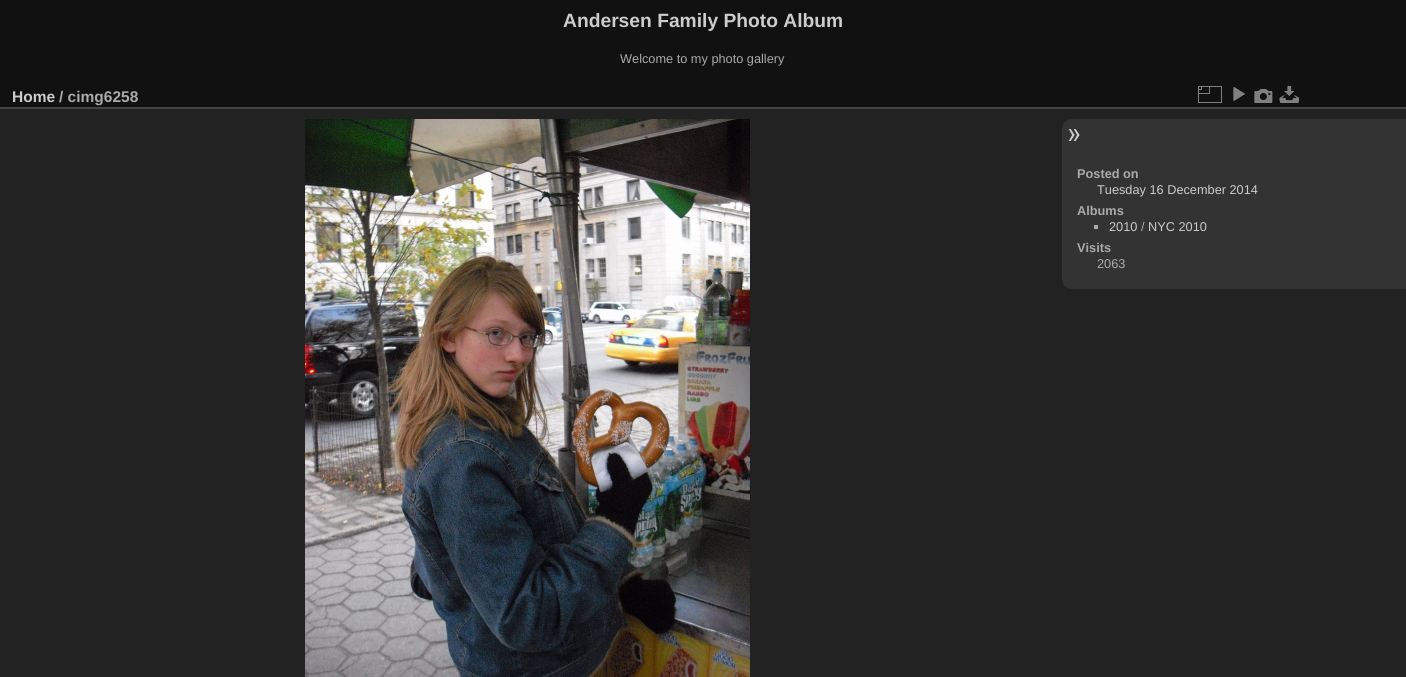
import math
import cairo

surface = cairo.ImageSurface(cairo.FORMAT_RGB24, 1406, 677)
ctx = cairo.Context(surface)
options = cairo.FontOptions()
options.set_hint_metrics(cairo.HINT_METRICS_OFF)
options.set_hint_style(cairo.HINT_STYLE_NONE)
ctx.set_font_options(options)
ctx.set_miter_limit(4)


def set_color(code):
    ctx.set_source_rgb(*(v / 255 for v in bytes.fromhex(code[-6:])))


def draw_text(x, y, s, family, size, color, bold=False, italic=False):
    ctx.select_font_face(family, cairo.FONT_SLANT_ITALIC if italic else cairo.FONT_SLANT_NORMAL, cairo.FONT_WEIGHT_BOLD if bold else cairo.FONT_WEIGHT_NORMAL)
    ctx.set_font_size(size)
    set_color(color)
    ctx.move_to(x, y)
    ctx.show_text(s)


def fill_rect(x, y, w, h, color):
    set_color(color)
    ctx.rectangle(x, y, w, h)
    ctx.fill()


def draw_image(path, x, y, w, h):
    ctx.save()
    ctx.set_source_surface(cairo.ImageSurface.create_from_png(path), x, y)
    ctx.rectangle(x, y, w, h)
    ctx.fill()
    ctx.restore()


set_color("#111111")
ctx.paint()
draw_text(563, 27, "Andersen Family Photo Album", "Liberation Sans", 19.25, "#cccccc", bold=True)
draw_text(620, 63, "Welcome to my photo gallery", "Liberation Sans", 12.75, "#aaaaaa")
fill_rect(0, 109, 1406, 568, "#222222")
fill_rect(0, 107, 1406, 2, "#444444")
draw_text(12, 102, "Home", "Liberation Sans", 15.5, "#cccccc", bold=True)
draw_text(59, 102, "/ cimg6258", "Liberation Sans", 15.5, "#aaaaaa", bold=True)
draw_image("assets/img1.png", 1198, 86, 24, 17)
draw_image("assets/img2.png", 1233, 87, 12, 14)
draw_image("assets/img3.png", 1254, 89, 19, 14)
draw_image("assets/img4.png", 1279, 86, 21, 17)
draw_image("assets/img5.png", 305, 119, 445, 558)
set_color("#333333")
ctx.new_path()
ctx.move_to(1072, 119)
ctx.line_to(1406, 119)
ctx.line_to(1406, 289)
ctx.line_to(1072, 289)
ctx.curve_to(1066.5, 289, 1062, 284.5, 1062, 279)
ctx.line_to(1062, 129)
ctx.curve_to(1062, 123.5, 1066.5, 119, 1072, 119)
ctx.close_path()
ctx.fill()
draw_image("assets/img6.png", 1068, 129, 12, 12)
draw_text(1077, 178, "Posted on", "Liberation Sans", 12.75, "#aaaaaa", bold=True)
draw_text(1097, 194, "Tuesday 16 December 2014", "Liberation Sans", 12.75, "#cccccc")
draw_text(1077, 215, "Albums", "Liberation Sans", 12.75, "#aaaaaa", bold=True)
fill_rect(1094, 225, 4, 4, "#aaaaaa")
draw_text(1109, 231, "2010", "Liberation Sans", 12.75, "#cccccc")
draw_text(1141, 231, "/", "Liberation Sans", 12.75, "#aaaaaa")
draw_text(1148, 231, "NYC 2010", "Liberation Sans", 12.75, "#cccccc")
draw_text(1077, 252, "Visits", "Liberation Sans", 12.75, "#aaaaaa", bold=True)
draw_text(1097, 268, "2063", "Liberation Sans", 12.75, "#aaaaaa")
surface.write_to_png("output.png")
